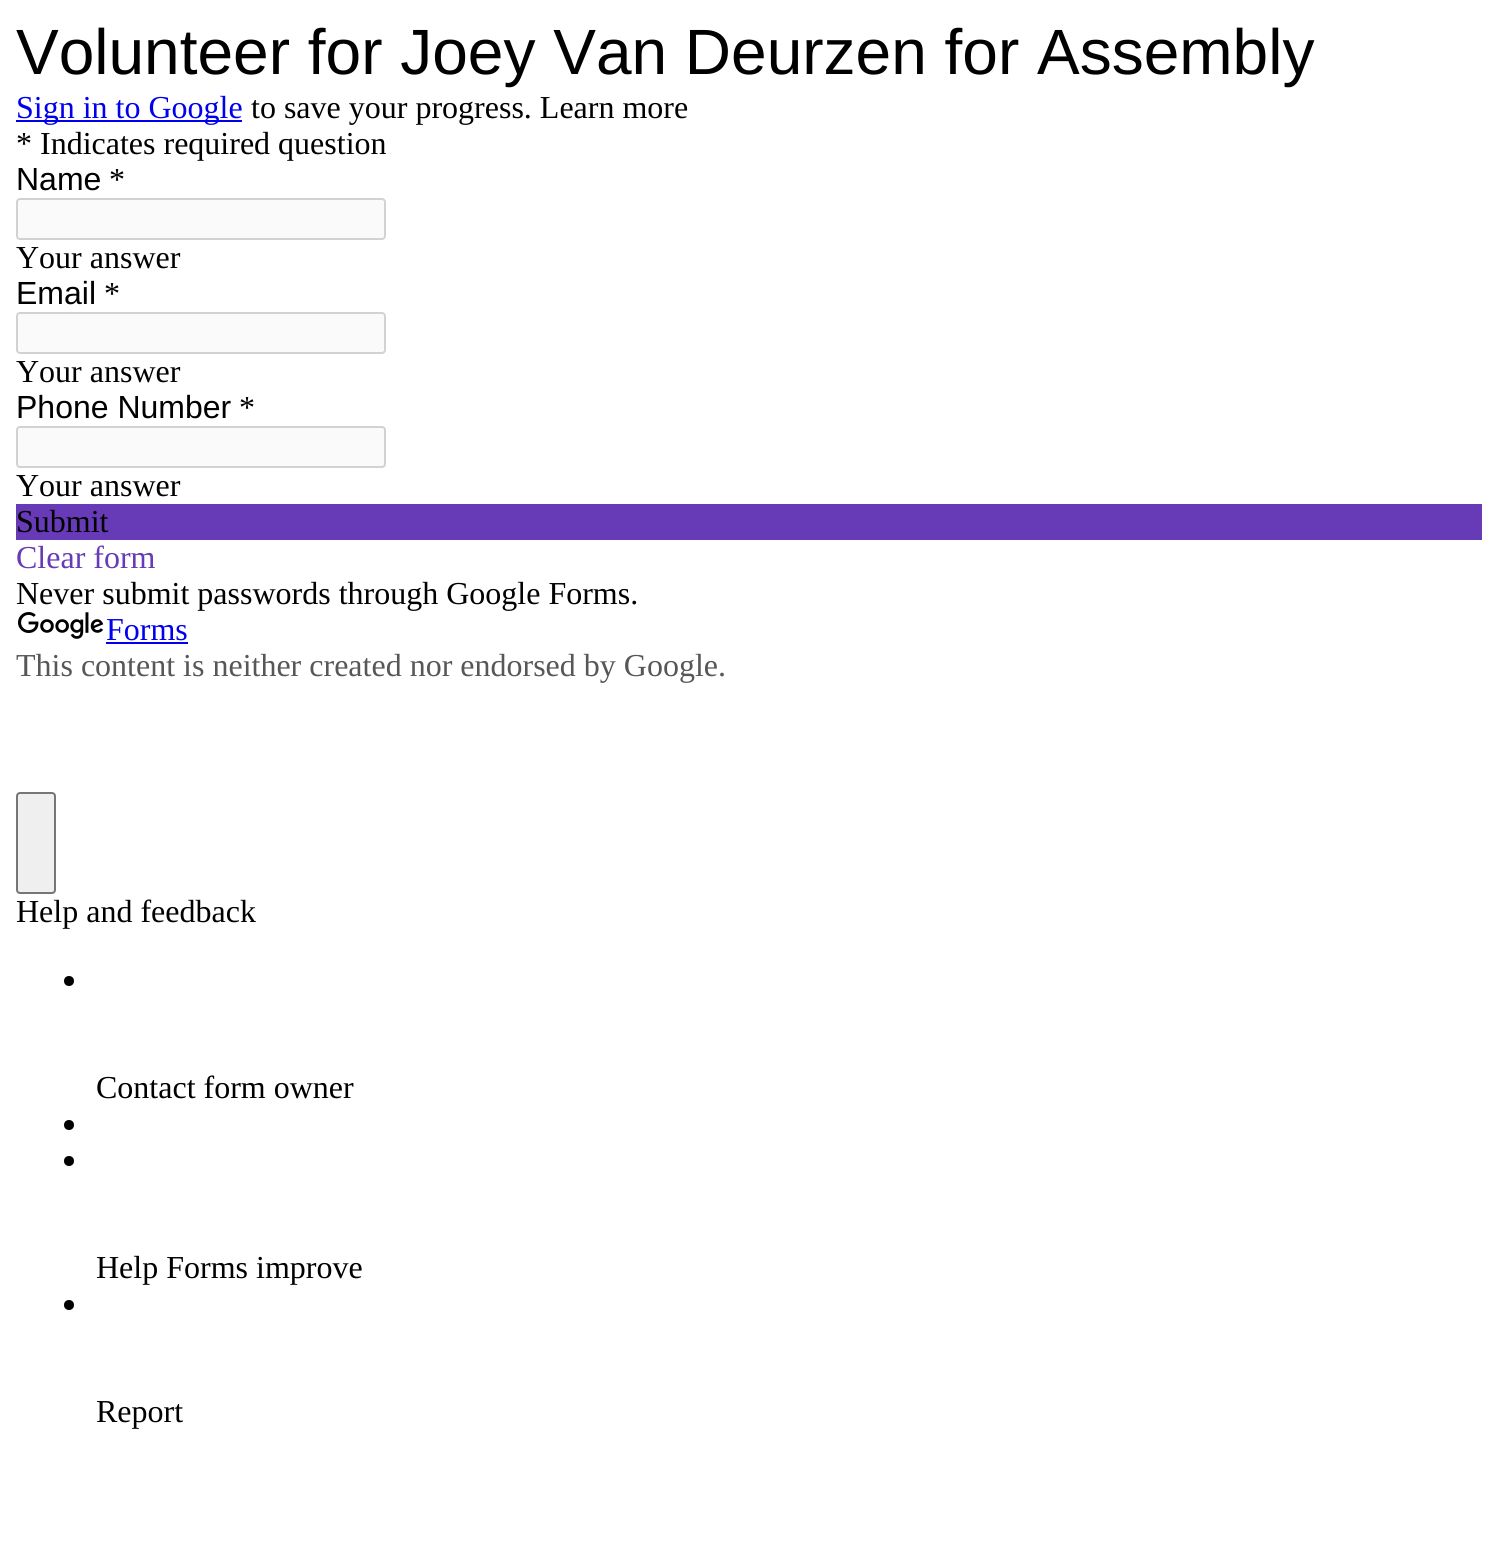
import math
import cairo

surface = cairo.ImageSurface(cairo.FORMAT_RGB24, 1497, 1542)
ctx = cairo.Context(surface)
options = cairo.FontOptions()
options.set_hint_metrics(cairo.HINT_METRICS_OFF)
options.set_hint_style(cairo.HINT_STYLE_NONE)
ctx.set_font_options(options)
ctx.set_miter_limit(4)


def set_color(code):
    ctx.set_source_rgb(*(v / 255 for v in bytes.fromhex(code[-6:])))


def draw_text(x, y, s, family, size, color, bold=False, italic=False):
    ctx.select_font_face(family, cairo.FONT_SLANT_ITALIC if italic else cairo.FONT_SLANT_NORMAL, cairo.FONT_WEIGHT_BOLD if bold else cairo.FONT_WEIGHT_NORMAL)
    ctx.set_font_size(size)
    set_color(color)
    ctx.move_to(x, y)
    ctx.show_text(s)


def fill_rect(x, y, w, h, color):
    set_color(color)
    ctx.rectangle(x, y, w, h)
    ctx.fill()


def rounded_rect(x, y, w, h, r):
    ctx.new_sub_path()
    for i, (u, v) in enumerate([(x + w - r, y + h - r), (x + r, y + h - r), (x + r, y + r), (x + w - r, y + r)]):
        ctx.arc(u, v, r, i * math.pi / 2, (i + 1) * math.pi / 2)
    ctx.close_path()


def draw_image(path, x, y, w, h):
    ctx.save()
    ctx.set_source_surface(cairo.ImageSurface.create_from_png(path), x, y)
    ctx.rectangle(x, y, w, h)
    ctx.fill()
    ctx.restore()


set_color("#ffffff")
ctx.paint()
draw_text(16, 74, "Volunteer for Joey Van Deurzen for Assembly", "Liberation Sans", 64, "#000000")
fill_rect(16, 120, 226, 2, "#0000ee")
draw_text(16, 118, "Sign in to Google", "Liberation Serif", 32, "#0000ee")
draw_text(251, 118, "to save your progress. Learn more", "Liberation Serif", 32, "#000000")
draw_text(16, 154, "* Indicates required question", "Liberation Serif", 32, "#000000")
draw_text(16, 190, "Name", "Liberation Sans", 32, "#000000")
draw_text(109, 190, "*", "Liberation Serif", 32, "#000000")
set_color("#fafafa")
rounded_rect(17, 199, 368, 40, 3)
ctx.fill_preserve()
set_color("#d2d2d2")
ctx.stroke()
draw_text(16, 268, "Your answer", "Liberation Serif", 32, "#000000")
draw_text(16, 304, "Email", "Liberation Sans", 32, "#000000")
draw_text(104, 304, "*", "Liberation Serif", 32, "#000000")
set_color("#fafafa")
rounded_rect(17, 313, 368, 40, 3)
ctx.fill_preserve()
set_color("#d2d2d2")
ctx.stroke()
draw_text(16, 382, "Your answer", "Liberation Serif", 32, "#000000")
draw_text(16, 418, "Phone Number", "Liberation Sans", 32, "#000000")
draw_text(239, 418, "*", "Liberation Serif", 32, "#000000")
set_color("#fafafa")
rounded_rect(17, 427, 368, 40, 3)
ctx.fill_preserve()
set_color("#d2d2d2")
ctx.stroke()
draw_text(16, 496, "Your answer", "Liberation Serif", 32, "#000000")
fill_rect(16, 504, 1466, 36, "#673ab7")
draw_text(16, 532, "Submit", "Liberation Serif", 32, "#000000")
draw_text(16, 568, "Clear form", "Liberation Serif", 32, "#673ab7")
draw_text(16, 604, "Never submit passwords through Google Forms.", "Liberation Serif", 32, "#000000")
draw_image("assets/img1.png", 18, 612, 86, 27)
draw_text(106, 640, "Forms", "Liberation Serif", 32, "#0000ee")
fill_rect(106, 642, 82, 2, "#0000ee")
draw_text(16, 676, "This content is neither created nor endorsed by Google.", "Liberation Serif", 32, "#575757")
set_color("#efefef")
rounded_rect(17, 793, 38, 100, 3)
ctx.fill_preserve()
set_color("#767676")
ctx.stroke()
draw_text(16, 922, "Help and feedback", "Liberation Serif", 32, "#000000")
ctx.new_path()
ctx.arc(69, 981, 5, 0, 2 * math.pi)
ctx.fill()
draw_text(96, 1098, "Contact form owner", "Liberation Serif", 32, "#000000")
ctx.new_path()
ctx.arc(69, 1125, 5, 0, 2 * math.pi)
ctx.fill()
ctx.arc(69, 1161, 5, 0, 2 * math.pi)
ctx.fill()
draw_text(96, 1278, "Help Forms improve", "Liberation Serif", 32, "#000000")
ctx.new_path()
ctx.arc(69, 1305, 5, 0, 2 * math.pi)
ctx.fill()
draw_text(96, 1422, "Report", "Liberation Serif", 32, "#000000")
surface.write_to_png("output.png")
